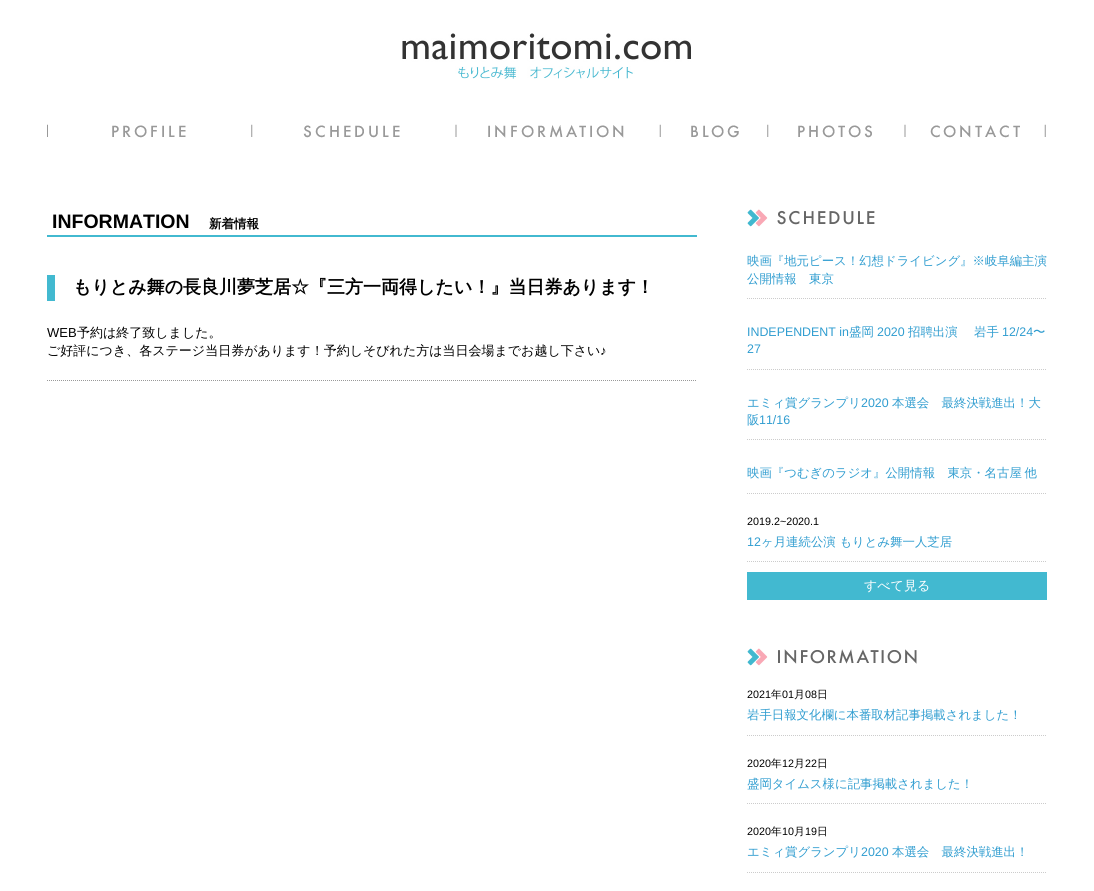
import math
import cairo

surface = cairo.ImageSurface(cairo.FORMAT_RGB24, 1094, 891)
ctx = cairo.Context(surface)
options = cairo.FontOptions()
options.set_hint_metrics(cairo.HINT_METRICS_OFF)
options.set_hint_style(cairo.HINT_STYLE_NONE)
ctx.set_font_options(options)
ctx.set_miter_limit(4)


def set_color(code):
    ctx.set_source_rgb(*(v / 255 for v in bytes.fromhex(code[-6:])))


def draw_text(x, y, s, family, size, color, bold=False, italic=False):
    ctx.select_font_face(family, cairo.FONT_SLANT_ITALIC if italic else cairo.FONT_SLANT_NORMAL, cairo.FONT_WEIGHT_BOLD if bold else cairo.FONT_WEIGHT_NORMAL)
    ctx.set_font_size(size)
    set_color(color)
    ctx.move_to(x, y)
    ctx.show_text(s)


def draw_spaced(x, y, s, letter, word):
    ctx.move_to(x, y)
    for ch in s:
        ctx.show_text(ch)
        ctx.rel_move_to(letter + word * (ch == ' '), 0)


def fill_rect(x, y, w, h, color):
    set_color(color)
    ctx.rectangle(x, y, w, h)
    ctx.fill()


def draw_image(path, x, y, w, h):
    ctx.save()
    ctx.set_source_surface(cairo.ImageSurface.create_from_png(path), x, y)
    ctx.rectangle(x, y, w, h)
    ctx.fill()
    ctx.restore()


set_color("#ffffff")
ctx.paint()
draw_image("assets/img1.png", 402, 33, 289, 46)
draw_image("assets/img2.png", 47, 124, 139, 14)
draw_image("assets/img3.png", 251, 124, 149, 14)
draw_image("assets/img4.png", 455, 124, 169, 14)
draw_image("assets/img5.png", 659, 124, 80, 14)
draw_image("assets/img6.png", 767, 124, 105, 14)
draw_image("assets/img7.png", 904, 124, 142, 14)
fill_rect(47, 235, 650, 2, "#42b9d0")
draw_text(52, 228, "INFORMATION", "Liberation Sans", 19.5, "#000000", bold=True)
draw_text(209, 228, "新着情報", "WenQuanYi Zen Hei", 12.5, "#000000", bold=True)
ctx.new_path()
ctx.move_to(47, 380.5)
ctx.line_to(697, 380.5)
set_color("#999999")
ctx.set_line_width(1)
ctx.set_dash([1, 1])
ctx.stroke()
fill_rect(47, 275, 8, 26, "#42b9d0")
draw_text(73, 293, "もりとみ舞の長良川夢芝居☆『三方一両得したい！』当日券あります！", "WenQuanYi Zen Hei", 18, "#000000", bold=True)
draw_text(47, 337, "WEB", "Liberation Sans", 13, "#000000")
draw_text(77, 337, "予約は終了致しました。", "WenQuanYi Zen Hei Medium", 13, "#000000")
draw_text(47, 355, "ご好評につき、各ステージ当日券があります！予約しそびれた方は当日会場までお越し下さい", "WenQuanYi Zen Hei Medium", 13, "#000000")
draw_text(600, 355, "♪", "Liberation Sans", 13, "#000000")
draw_image("assets/img8.png", 747, 209, 128, 18)
ctx.new_path()
ctx.move_to(747, 298.5)
ctx.line_to(1047, 298.5)
set_color("#cccccc")
ctx.stroke()
draw_text(747, 265, "映画『地元ピース！幻想ドライビング』※岐阜編主演", "WenQuanYi Zen Hei Medium", 12.4, "#309dd0")
draw_text(747, 283, "公開情報　東京", "WenQuanYi Zen Hei Medium", 12.4, "#309dd0")
ctx.new_path()
ctx.move_to(747, 369.5)
ctx.line_to(1047, 369.5)
set_color("#cccccc")
ctx.stroke()
draw_text(747, 336, "INDEPENDENT in", "Liberation Sans", 12.4, "#309dd0")
draw_text(849, 336, "盛岡", "WenQuanYi Zen Hei Medium", 12.4, "#309dd0")
draw_text(877, 336, "2020", "Liberation Sans", 12.4, "#309dd0")
draw_text(908, 336, "招聘出演", "WenQuanYi Zen Hei Medium", 12.4, "#309dd0")
draw_text(974, 336, "岩手", "WenQuanYi Zen Hei Medium", 12.4, "#309dd0")
draw_text(1002, 336, "12/24", "Liberation Sans", 12.4, "#309dd0")
draw_text(1033, 336, "〜", "WenQuanYi Zen Hei Medium", 12.4, "#309dd0")
draw_text(747, 353, "27", "Liberation Sans", 12.4, "#309dd0")
ctx.new_path()
ctx.move_to(747, 439.5)
ctx.line_to(1047, 439.5)
set_color("#cccccc")
ctx.stroke()
draw_text(747, 407, "エミィ賞グランプリ", "WenQuanYi Zen Hei Medium", 12.4, "#309dd0")
draw_text(861, 407, "2020", "Liberation Sans", 12.4, "#309dd0")
draw_text(892, 407, "本選会　最終決戦進出！大", "WenQuanYi Zen Hei Medium", 12.4, "#309dd0")
draw_text(747, 424, "阪", "WenQuanYi Zen Hei Medium", 12.4, "#309dd0")
draw_text(759, 424, "11/16", "Liberation Sans", 12.4, "#309dd0")
ctx.new_path()
ctx.move_to(747, 493.5)
ctx.line_to(1047, 493.5)
set_color("#cccccc")
ctx.stroke()
ctx.select_font_face("WenQuanYi Zen Hei Medium")
set_color("#309dd0")
draw_spaced(747, 477, "映画『つむぎのラジオ』公開情報　東京・名古屋 他", 0, -1)
ctx.new_path()
ctx.move_to(747, 561.5)
ctx.line_to(1047, 561.5)
set_color("#cccccc")
ctx.stroke()
draw_text(747, 525, "2019.2~2020.1", "Liberation Sans", 10.75, "#000000")
draw_text(747, 546, "12", "Liberation Sans", 12.4, "#309dd0")
draw_text(761, 546, "ヶ月連続公演 もりとみ舞一人芝居", "WenQuanYi Zen Hei Medium", 12.4, "#309dd0")
fill_rect(747, 572, 300, 28, "#42b9d0")
draw_text(864, 590, "すべて見る", "WenQuanYi Zen Hei Medium", 13, "#ffffff")
draw_image("assets/img9.png", 747, 648, 170, 18)
ctx.new_path()
ctx.move_to(747, 735.5)
ctx.line_to(1047, 735.5)
set_color("#cccccc")
ctx.stroke()
draw_text(747, 698, "2021", "Liberation Sans", 10.75, "#000000")
draw_text(771, 698, "年", "WenQuanYi Zen Hei Medium", 10.75, "#000000")
draw_text(782, 698, "01", "Liberation Sans", 10.75, "#000000")
draw_text(794, 698, "月", "WenQuanYi Zen Hei Medium", 10.75, "#000000")
draw_text(805, 698, "08", "Liberation Sans", 10.75, "#000000")
draw_text(817, 698, "日", "WenQuanYi Zen Hei Medium", 10.75, "#000000")
draw_text(747, 719, "岩手日報文化欄に本番取材記事掲載されました！", "WenQuanYi Zen Hei Medium", 12.4, "#309dd0")
ctx.new_path()
ctx.move_to(747, 803.5)
ctx.line_to(1047, 803.5)
set_color("#cccccc")
ctx.stroke()
draw_text(747, 767, "2020", "Liberation Sans", 10.75, "#000000")
draw_text(771, 767, "年", "WenQuanYi Zen Hei Medium", 10.75, "#000000")
draw_text(782, 767, "12", "Liberation Sans", 10.75, "#000000")
draw_text(794, 767, "月", "WenQuanYi Zen Hei Medium", 10.75, "#000000")
draw_text(805, 767, "22", "Liberation Sans", 10.75, "#000000")
draw_text(817, 767, "日", "WenQuanYi Zen Hei Medium", 10.75, "#000000")
draw_text(747, 788, "盛岡タイムス様に記事掲載されました！", "WenQuanYi Zen Hei Medium", 12.4, "#309dd0")
ctx.new_path()
ctx.move_to(747, 872.5)
ctx.line_to(1047, 872.5)
set_color("#cccccc")
ctx.stroke()
draw_text(747, 835, "2020", "Liberation Sans", 10.75, "#000000")
draw_text(771, 835, "年", "WenQuanYi Zen Hei Medium", 10.75, "#000000")
draw_text(782, 835, "10", "Liberation Sans", 10.75, "#000000")
draw_text(794, 835, "月", "WenQuanYi Zen Hei Medium", 10.75, "#000000")
draw_text(805, 835, "19", "Liberation Sans", 10.75, "#000000")
draw_text(817, 835, "日", "WenQuanYi Zen Hei Medium", 10.75, "#000000")
draw_text(747, 856, "エミィ賞グランプリ", "WenQuanYi Zen Hei Medium", 12.4, "#309dd0")
draw_text(861, 856, "2020", "Liberation Sans", 12.4, "#309dd0")
draw_text(892, 856, "本選会　最終決戦進出！", "WenQuanYi Zen Hei Medium", 12.4, "#309dd0")
surface.write_to_png("output.png")
